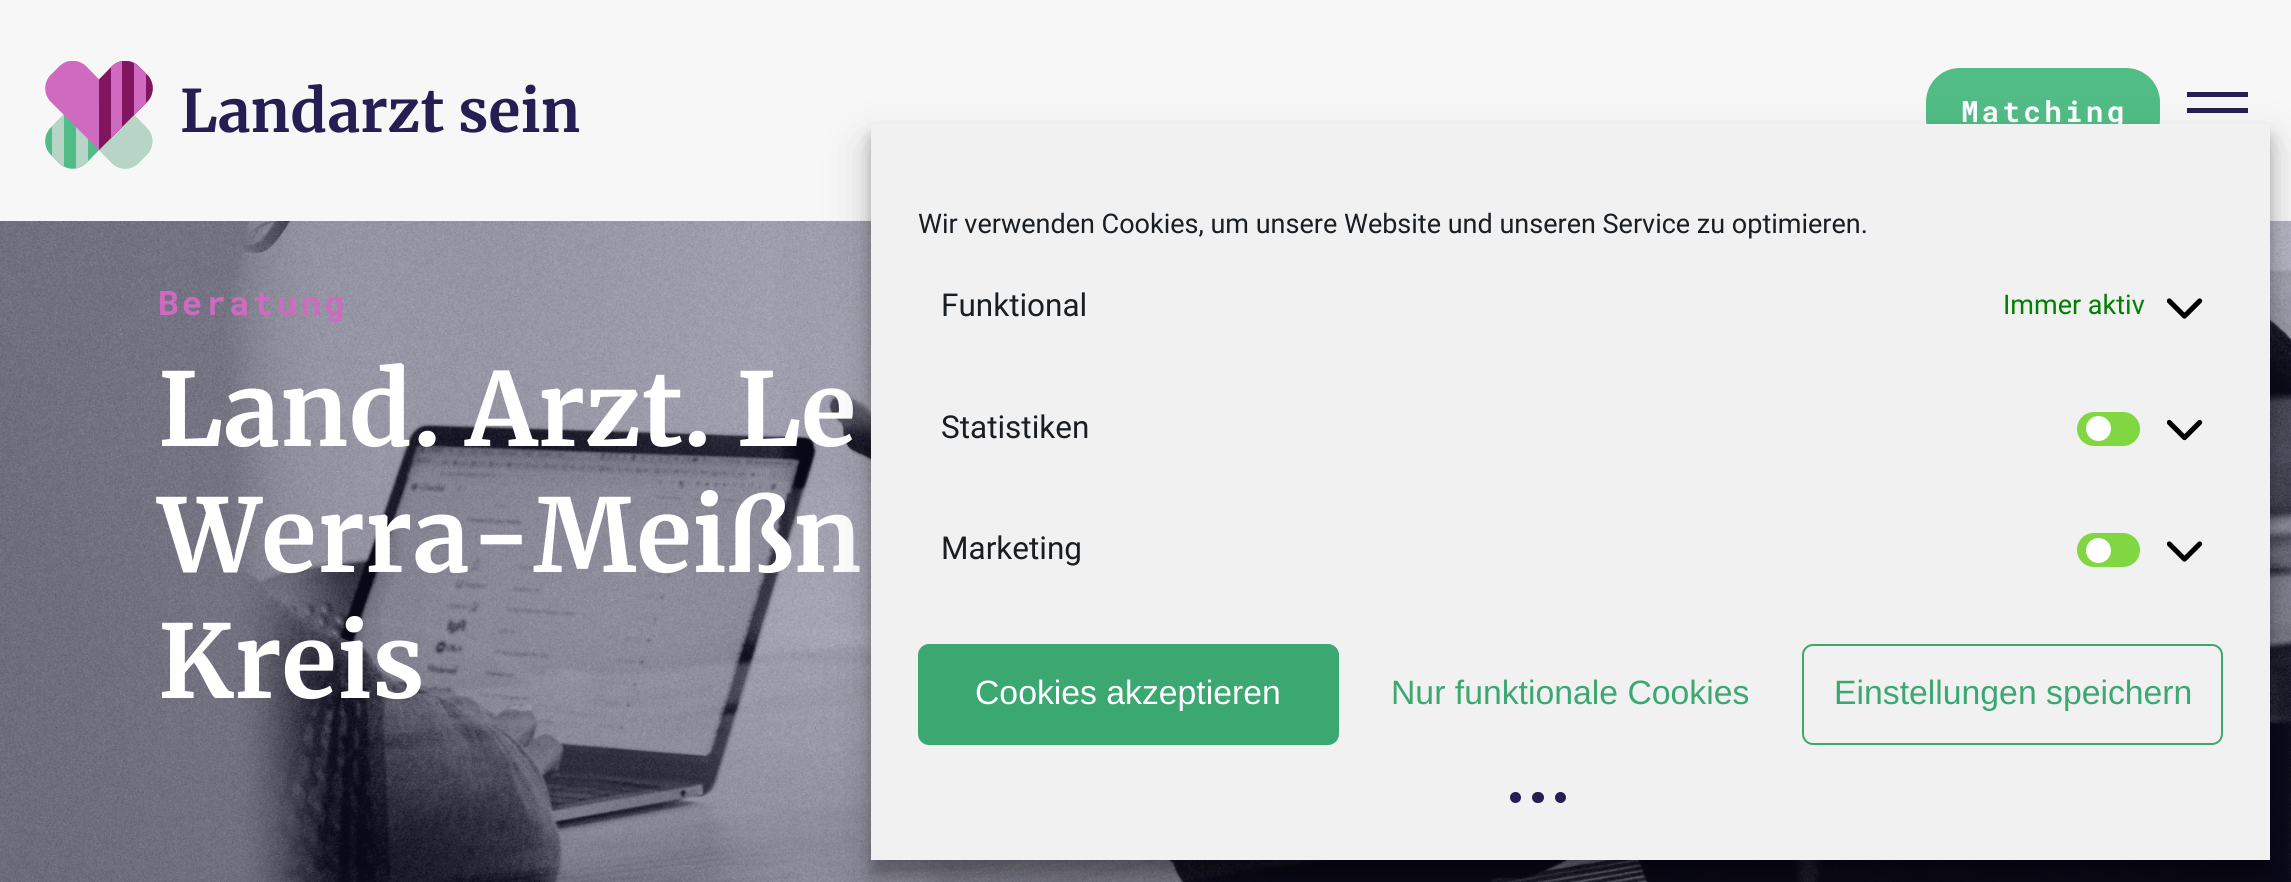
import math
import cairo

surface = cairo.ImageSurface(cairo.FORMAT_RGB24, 2291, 882)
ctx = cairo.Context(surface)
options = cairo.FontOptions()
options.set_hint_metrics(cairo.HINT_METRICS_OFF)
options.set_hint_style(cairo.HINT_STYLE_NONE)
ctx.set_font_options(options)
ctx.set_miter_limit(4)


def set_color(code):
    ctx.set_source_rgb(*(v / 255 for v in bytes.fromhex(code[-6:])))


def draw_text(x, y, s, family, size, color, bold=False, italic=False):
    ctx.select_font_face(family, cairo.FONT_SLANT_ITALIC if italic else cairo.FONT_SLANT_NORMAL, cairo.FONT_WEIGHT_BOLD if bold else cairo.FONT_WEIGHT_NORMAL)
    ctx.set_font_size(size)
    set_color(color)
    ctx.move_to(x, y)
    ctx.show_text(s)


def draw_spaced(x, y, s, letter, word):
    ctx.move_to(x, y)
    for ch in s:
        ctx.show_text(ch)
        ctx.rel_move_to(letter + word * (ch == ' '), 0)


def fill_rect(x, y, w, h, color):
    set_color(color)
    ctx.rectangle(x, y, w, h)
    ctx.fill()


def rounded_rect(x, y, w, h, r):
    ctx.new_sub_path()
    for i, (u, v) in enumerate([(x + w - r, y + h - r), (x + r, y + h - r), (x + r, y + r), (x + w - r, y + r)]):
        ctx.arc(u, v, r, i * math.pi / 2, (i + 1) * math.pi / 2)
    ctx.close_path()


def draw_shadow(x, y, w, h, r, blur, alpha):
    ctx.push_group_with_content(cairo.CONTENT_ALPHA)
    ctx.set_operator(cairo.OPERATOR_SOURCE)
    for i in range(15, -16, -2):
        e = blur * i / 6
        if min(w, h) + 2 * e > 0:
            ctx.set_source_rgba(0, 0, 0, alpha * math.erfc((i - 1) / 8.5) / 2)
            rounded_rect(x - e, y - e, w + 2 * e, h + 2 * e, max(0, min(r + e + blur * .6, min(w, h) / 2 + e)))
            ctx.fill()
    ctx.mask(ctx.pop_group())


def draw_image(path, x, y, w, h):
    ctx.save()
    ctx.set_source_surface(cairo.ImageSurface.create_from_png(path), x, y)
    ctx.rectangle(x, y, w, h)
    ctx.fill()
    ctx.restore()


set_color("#ffffff")
ctx.paint()
fill_rect(0, 0, 2291, 221, "#f7f7f7")
draw_image("assets/img1.png", 45, 61, 108, 108)
draw_text(180, 132, "Landarzt sein", "Merriweather", 58.5, "#251e52", bold=True)
set_color("#51bc86")
rounded_rect(1926, 68, 234, 85, 34)
ctx.fill()
ctx.select_font_face("Roboto Mono", cairo.FONT_SLANT_NORMAL, cairo.FONT_WEIGHT_BOLD)
ctx.set_font_size(29.25)
set_color("#ffffff")
draw_spaced(1961, 122, "Matching", 3.25, 0)
fill_rect(2187, 92, 61, 5, "#251e52")
fill_rect(2187, 108, 61, 5, "#251e52")
draw_image("assets/img2.png", 0, 221, 2291, 661)
ctx.set_font_size(33.75)
set_color("#d06ac0")
draw_spaced(158, 315, "Beratung", 3.5, 0)
draw_text(158, 446, "Land. Arzt. Le", "Merriweather", 101.25, "#ffffff", bold=True)
draw_text(158, 572, "Werra-Meißn", "Merriweather", 101.25, "#ffffff", bold=True)
draw_text(158, 698, "Kreis", "Merriweather", 101.25, "#ffffff", bold=True)
set_color("#000000")
draw_shadow(871, 137, 1399, 736, 0, 7, 0.23)
draw_shadow(871, 146, 1399, 736, 0, 22.5, 0.19)
fill_rect(871, 124, 1399, 736, "#f1f1f1")
draw_text(918, 233, "Wir verwenden Cookies, um unsere Website und unseren Service zu optimieren.", "Roboto", 27, "#191e23")
draw_text(941, 316, "Funktional", "Roboto", 31.5, "#191e23")
draw_text(2003, 314, "Immer aktiv", "Roboto", 27, "#008000")
draw_image("assets/img3.png", 2167, 298, 36, 21)
draw_text(941, 438, "Statistiken", "Roboto", 31.5, "#191e23")
set_color("#81d742")
rounded_rect(2077, 412, 63, 34, 17)
ctx.fill()
set_color("#ffffff")
ctx.arc(2098.5, 428.5, 12.5, 0, 2 * math.pi)
ctx.fill()
draw_image("assets/img4.png", 2167, 419, 36, 22)
draw_text(941, 559, "Marketing", "Roboto", 31.5, "#191e23")
set_color("#81d742")
rounded_rect(2077, 533, 63, 34, 17)
ctx.fill()
set_color("#ffffff")
ctx.arc(2098.5, 550.5, 12.5, 0, 2 * math.pi)
ctx.fill()
draw_image("assets/img3.png", 2167, 541, 36, 21)
set_color("#3ba771")
rounded_rect(919, 645, 419, 99, 10)
ctx.fill_preserve()
ctx.stroke()
draw_text(975, 704, "Cookies akzeptieren", "Liberation Sans", 33.75, "#ffffff")
draw_text(1391, 704, "Nur funktionale Cookies", "Liberation Sans", 33.75, "#3ba771")
rounded_rect(1803, 645, 419, 99, 10)
ctx.stroke()
draw_text(1834, 704, "Einstellungen speichern", "Liberation Sans", 33.75, "#3ba771")
set_color("#251e52")
ctx.new_path()
ctx.arc(1515.5, 797.5, 5.5, 0, 2 * math.pi)
ctx.fill()
rounded_rect(1532, 792, 12, 11, 5.5)
ctx.fill()
ctx.arc(1560.5, 797.5, 5.5, 0, 2 * math.pi)
ctx.fill()
surface.write_to_png("output.png")
